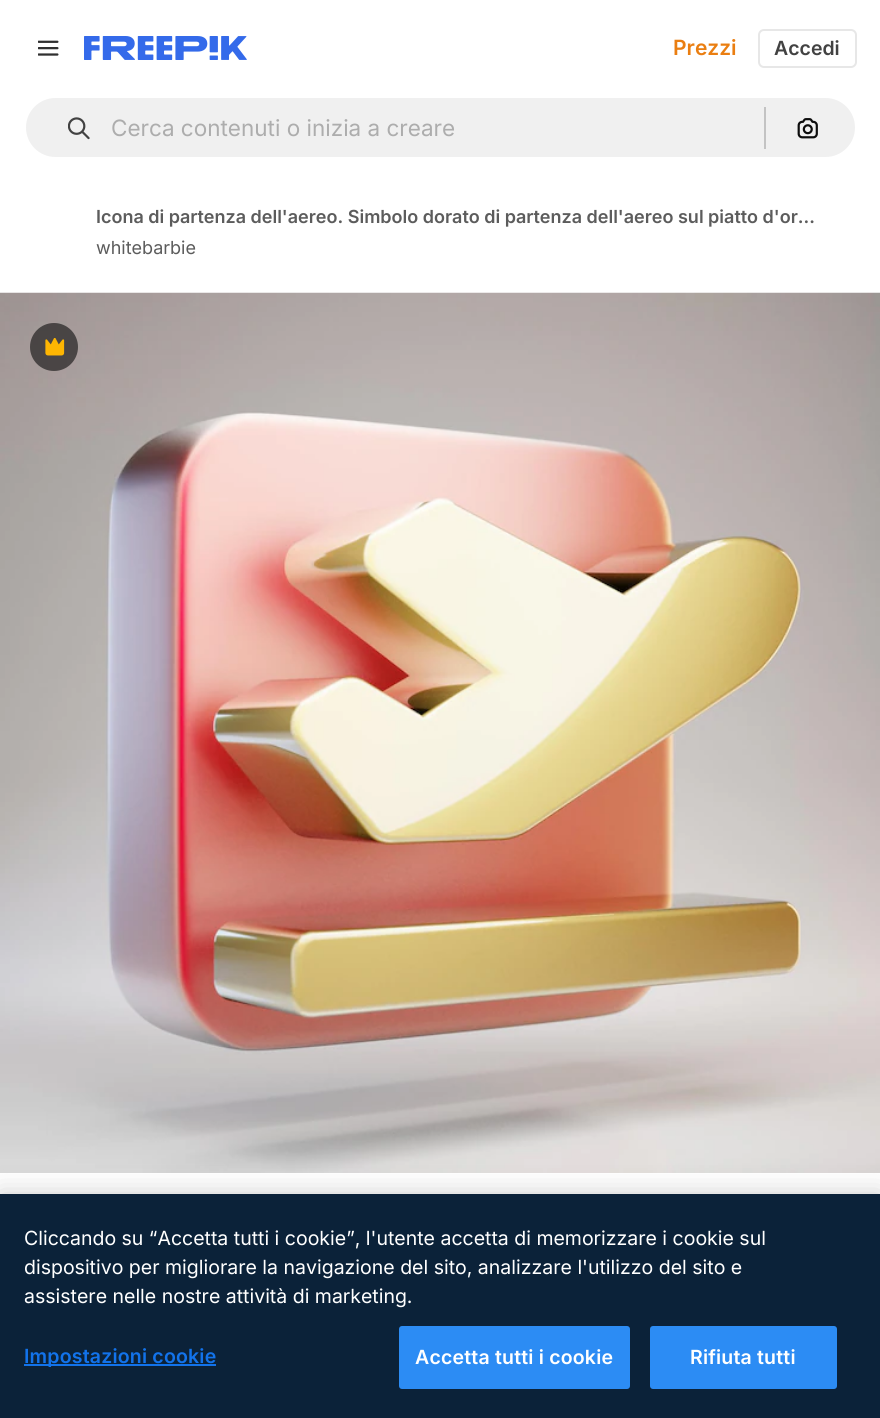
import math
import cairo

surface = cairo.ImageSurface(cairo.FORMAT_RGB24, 880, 1418)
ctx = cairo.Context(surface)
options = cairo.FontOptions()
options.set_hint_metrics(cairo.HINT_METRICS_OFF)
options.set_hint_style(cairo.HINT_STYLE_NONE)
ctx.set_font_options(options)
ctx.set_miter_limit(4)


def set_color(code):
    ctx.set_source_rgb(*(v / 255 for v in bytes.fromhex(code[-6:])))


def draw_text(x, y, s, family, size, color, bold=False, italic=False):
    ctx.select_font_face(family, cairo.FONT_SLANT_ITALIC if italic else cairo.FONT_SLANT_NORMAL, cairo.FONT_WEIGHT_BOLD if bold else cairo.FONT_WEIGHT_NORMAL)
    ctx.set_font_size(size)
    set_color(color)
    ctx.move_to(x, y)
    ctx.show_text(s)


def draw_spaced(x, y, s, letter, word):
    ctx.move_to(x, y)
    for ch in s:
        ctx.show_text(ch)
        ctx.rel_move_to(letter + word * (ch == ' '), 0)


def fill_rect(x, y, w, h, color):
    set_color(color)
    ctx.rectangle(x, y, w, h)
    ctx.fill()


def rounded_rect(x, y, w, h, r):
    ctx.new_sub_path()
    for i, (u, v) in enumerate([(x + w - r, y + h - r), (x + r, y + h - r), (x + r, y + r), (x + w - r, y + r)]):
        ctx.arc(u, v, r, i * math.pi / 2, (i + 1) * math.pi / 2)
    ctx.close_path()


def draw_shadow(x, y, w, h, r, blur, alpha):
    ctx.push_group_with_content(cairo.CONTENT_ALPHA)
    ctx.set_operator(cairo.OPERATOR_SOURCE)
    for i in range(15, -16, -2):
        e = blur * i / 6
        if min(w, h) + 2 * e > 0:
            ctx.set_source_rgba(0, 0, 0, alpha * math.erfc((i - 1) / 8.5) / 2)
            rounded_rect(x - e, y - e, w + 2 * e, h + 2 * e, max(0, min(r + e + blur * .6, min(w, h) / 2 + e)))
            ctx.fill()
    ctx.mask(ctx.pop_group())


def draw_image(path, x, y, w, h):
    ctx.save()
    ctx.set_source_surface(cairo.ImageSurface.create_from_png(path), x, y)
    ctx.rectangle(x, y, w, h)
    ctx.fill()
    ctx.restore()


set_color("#ffffff")
ctx.paint()
draw_image("assets/img1.png", 38, 40, 21, 16)
draw_image("assets/img2.png", 84, 36, 163, 24)
draw_text(673, 55, "Prezzi", "Inter SemiBold", 21, "#ea7e11")
rounded_rect(759, 30, 97, 37, 5)
set_color("#e7e7e7")
ctx.stroke()
draw_text(774, 55, "Accedi", "Inter SemiBold", 19.5, "#424242")
set_color("#f0f0f0")
rounded_rect(25, 97, 831, 61, 30.5)
ctx.fill_preserve()
set_color("#ffffff")
ctx.stroke()
draw_image("assets/img3.png", 68, 117, 22, 23)
draw_text(111, 136, "Cerca contenuti o inizia a creare", "Inter", 22.5, "#adadad")
fill_rect(764, 107, 2, 42, "#c3c3c3")
draw_image("assets/img4.png", 797, 118, 21, 21)
draw_text(96, 223, "Icona di partenza dell'aereo. Simbolo dorato di partenza dell'aereo sul piatto d'or…", "Inter SemiBold", 18, "#5c5c5c")
draw_text(96, 254, "whitebarbie", "Inter", 18, "#5c5c5c")
draw_image("assets/img5.png", 0, 292, 880, 881)
ctx.set_source_rgba(0.051, 0.051, 0.051, 0.6)
ctx.arc(54, 347, 24, 0, 2 * math.pi)
ctx.fill()
draw_image("assets/img6.png", 45, 338, 20, 18)
set_color("#000000")
draw_shadow(0, 1194, 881, 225, 0, 13.5, 0.2)
fill_rect(0, 1194, 880, 224, "#0b2239")
draw_text(24, 1245, "Cliccando su “Accetta tutti i cookie”, l'utente accetta di memorizzare i cookie sul", "Inter", 19.5, "#ffffff")
draw_text(24, 1274, "dispositivo per migliorare la navigazione del sito, analizzare l'utilizzo del sito e", "Inter", 19.5, "#ffffff")
draw_text(24, 1303, "assistere nelle nostre attività di marketing.", "Inter", 19.5, "#ffffff")
fill_rect(24, 1364, 192, 2, "#1273eb")
ctx.select_font_face("Inter SemiBold")
draw_spaced(24, 1363, "Impostazioni cookie", 0.2, 0)
set_color("#2c8cf4")
rounded_rect(400, 1327, 229, 61, 2)
ctx.fill_preserve()
ctx.stroke()
set_color("#ffffff")
draw_spaced(415, 1364, "Accetta tutti i cookie", 0.2, 0)
set_color("#2c8cf4")
rounded_rect(651, 1327, 185, 61, 2)
ctx.fill_preserve()
ctx.stroke()
set_color("#ffffff")
draw_spaced(690, 1364, "Rifiuta tutti", 0.2, 0)
surface.write_to_png("output.png")
